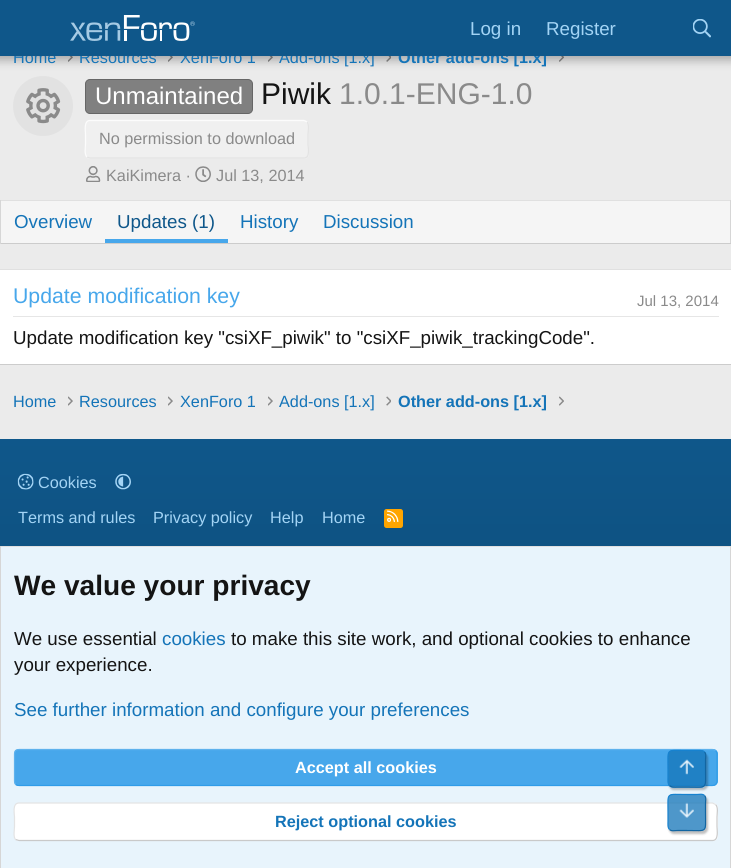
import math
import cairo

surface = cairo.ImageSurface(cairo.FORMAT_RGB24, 731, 868)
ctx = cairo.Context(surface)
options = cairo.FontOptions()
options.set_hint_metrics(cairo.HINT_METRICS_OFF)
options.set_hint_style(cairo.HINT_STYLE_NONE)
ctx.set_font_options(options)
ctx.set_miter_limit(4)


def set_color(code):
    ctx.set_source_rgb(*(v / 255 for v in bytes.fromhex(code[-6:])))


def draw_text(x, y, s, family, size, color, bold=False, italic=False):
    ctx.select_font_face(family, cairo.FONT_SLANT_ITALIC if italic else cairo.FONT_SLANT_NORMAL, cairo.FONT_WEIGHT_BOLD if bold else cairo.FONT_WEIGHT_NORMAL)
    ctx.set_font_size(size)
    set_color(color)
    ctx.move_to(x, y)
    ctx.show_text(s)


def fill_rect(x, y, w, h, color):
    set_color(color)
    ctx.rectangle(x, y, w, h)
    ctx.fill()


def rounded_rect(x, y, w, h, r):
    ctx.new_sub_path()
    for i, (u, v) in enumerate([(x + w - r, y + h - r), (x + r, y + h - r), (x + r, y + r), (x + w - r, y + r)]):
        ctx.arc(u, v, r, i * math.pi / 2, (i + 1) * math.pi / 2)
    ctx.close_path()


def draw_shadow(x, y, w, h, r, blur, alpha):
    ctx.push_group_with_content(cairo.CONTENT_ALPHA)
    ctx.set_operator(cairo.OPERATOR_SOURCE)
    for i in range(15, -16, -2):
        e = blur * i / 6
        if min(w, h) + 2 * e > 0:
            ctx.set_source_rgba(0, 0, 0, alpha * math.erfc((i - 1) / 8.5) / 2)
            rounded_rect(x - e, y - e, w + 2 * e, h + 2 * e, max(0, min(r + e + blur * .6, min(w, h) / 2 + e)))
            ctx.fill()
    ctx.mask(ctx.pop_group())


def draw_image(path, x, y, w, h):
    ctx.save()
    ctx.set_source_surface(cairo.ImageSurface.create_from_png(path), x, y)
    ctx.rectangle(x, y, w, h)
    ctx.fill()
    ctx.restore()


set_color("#ebebeb")
ctx.paint()
draw_image("assets/img3.png", 68, 56, 5, 6)
draw_image("assets/img3.png", 168, 56, 5, 6)
draw_image("assets/img3.png", 268, 56, 5, 6)
draw_image("assets/img4.png", 386, 56, 5, 6)
draw_image("assets/img5.png", 559, 56, 5, 6)
set_color("#000000")
draw_shadow(-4, -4, 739, 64, 0, 5, 0.3)
draw_text(13, 63, "Home", "Liberation Sans", 16.25, "#1474b8")
draw_text(79, 63, "Resources", "Liberation Sans", 16.25, "#1474b8")
draw_text(180, 63, "XenForo 1", "Liberation Sans", 16.25, "#1474b8")
draw_text(279, 63, "Add-ons [1.x]", "Liberation Sans", 16.25, "#1474b8")
draw_text(398, 63, "Other add-ons [1.x]", "Liberation Sans", 16.25, "#1474b8", bold=True)
fill_rect(0, 0, 731, 56, "#0f578a")
draw_image("assets/img1.png", 70, 15, 125, 26)
draw_text(470, 35, "Log in", "Liberation Sans", 18.75, "#a3d4f5")
draw_text(546, 35, "Register", "Liberation Sans", 18.75, "#a3d4f5")
draw_image("assets/img2.png", 693, 19, 18, 19)
set_color("#e2e2e2")
ctx.arc(43, 106, 30, 0, 2 * math.pi)
ctx.fill()
draw_image("assets/img6.png", 26, 88, 35, 36)
set_color("#808080")
rounded_rect(85.5, 79.5, 167, 34, 4.5)
ctx.fill_preserve()
set_color("#666666")
ctx.set_line_width(1)
ctx.stroke()
draw_text(95, 104, "Unmaintained", "Liberation Sans", 24, "#ffffff")
draw_text(261, 104, "Piwik", "Liberation Sans", 30, "#141414")
draw_text(339, 104, "1.0.1-ENG-1.0", "Liberation Sans", 30, "#8a8a8a")
set_color("#f0f0f0")
rounded_rect(85, 120, 224, 39, 5)
ctx.fill()
ctx.new_path()
ctx.move_to(307, 122)
ctx.curve_to(309.5, 124.5, 308, 131.5, 308, 134.5)
ctx.line_to(308, 144)
ctx.curve_to(308, 147.5, 310.5, 158, 304, 158)
ctx.line_to(90, 158)
ctx.line_to(87, 157)
set_color("#e3e3e3")
ctx.set_line_width(1.2)
ctx.stroke()
ctx.new_path()
ctx.move_to(87, 157)
ctx.curve_to(84, 154, 85.5, 147.5, 85.5, 144)
ctx.line_to(85.5, 134.5)
ctx.curve_to(85.5, 131.5, 83.5, 120.5, 90, 120.5)
ctx.line_to(304, 120.5)
ctx.line_to(307, 122)
set_color("#fcfcfc")
ctx.stroke()
draw_text(99, 144, "No permission to download", "Liberation Sans", 16.25, "#8a8a8a")
draw_image("assets/img7.png", 86, 166, 15, 16)
draw_text(106, 181, "KaiKimera ·", "Liberation Sans", 16.25, "#8a8a8a")
draw_image("assets/img8.png", 195, 166, 16, 16)
draw_text(216, 181, "Jul 13, 2014", "Liberation Sans", 16.25, "#8a8a8a")
fill_rect(1, 201, 729, 42, "#f5f5f5")
fill_rect(0, 200, 731, 1, "#e0e0e0")
fill_rect(730, 200, 1, 44, "#d6d6d6")
fill_rect(0, 243, 731, 1, "#cccccc")
fill_rect(0, 200, 1, 44, "#d6d6d6")
draw_text(14, 228, "Overview", "Liberation Sans", 18.75, "#1474b8")
fill_rect(105, 239, 123, 4, "#47a7eb")
draw_text(117, 228, "Updates (1)", "Liberation Sans", 18.75, "#0f578a")
draw_text(240, 228, "History", "Liberation Sans", 18.75, "#1474b8")
draw_text(323, 228, "Discussion", "Liberation Sans", 18.75, "#1474b8")
fill_rect(0, 270, 731, 94, "#ffffff")
fill_rect(0, 269, 731, 1, "#e0e0e0")
fill_rect(0, 364, 731, 1, "#cccccc")
fill_rect(13, 316, 706, 1, "#e6e6e6")
draw_text(13, 303, "Update modification key", "Liberation Sans", 21.25, "#47a7eb")
draw_text(637, 306, "Jul 13, 2014", "Liberation Sans", 15, "#8a8a8a")
draw_text(13, 344, "Update modification key \"csiXF_piwik\" to \"csiXF_piwik_trackingCode\".", "Liberation Sans", 18.75, "#141414")
draw_text(13, 407, "Home", "Liberation Sans", 16.25, "#1474b8")
draw_image("assets/img9.png", 68, 396, 5, 10)
draw_text(79, 407, "Resources", "Liberation Sans", 16.25, "#1474b8")
draw_image("assets/img9.png", 168, 396, 5, 10)
draw_text(180, 407, "XenForo 1", "Liberation Sans", 16.25, "#1474b8")
draw_image("assets/img9.png", 268, 396, 5, 10)
draw_text(279, 407, "Add-ons [1.x]", "Liberation Sans", 16.25, "#1474b8")
draw_image("assets/img10.png", 386, 396, 5, 10)
draw_text(398, 407, "Other add-ons [1.x]", "Liberation Sans", 16.25, "#1474b8", bold=True)
draw_image("assets/img11.png", 559, 396, 5, 10)
gradient = cairo.LinearGradient(366, 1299, 366, 439)
gradient.add_color_stop_rgba(0, 0.035, 0.204, 0.325, 1)
gradient.add_color_stop_rgba(1, 0.059, 0.341, 0.541, 1)
ctx.set_source(gradient)
ctx.rectangle(0, 439, 731, 107)
ctx.fill()
draw_image("assets/img12.png", 17, 473, 17, 17)
draw_text(38, 488, "Cookies", "Liberation Sans", 16.25, "#a3d4f5")
draw_image("assets/img13.png", 115, 473, 16, 17)
draw_text(18, 523, "Terms and rules", "Liberation Sans", 16.25, "#a3d4f5")
draw_text(153, 523, "Privacy policy", "Liberation Sans", 16.25, "#a3d4f5")
draw_text(270, 523, "Help", "Liberation Sans", 16.25, "#a3d4f5")
draw_text(322, 523, "Home", "Liberation Sans", 16.25, "#a3d4f5")
set_color("#ffa500")
rounded_rect(384, 509, 19, 19, 2.5)
ctx.fill()
draw_image("assets/img14.png", 387, 510, 12, 12)
fill_rect(1, 547, 729, 321, "#e8f4fc")
fill_rect(0, 546, 731, 1, "#e0e0e0")
fill_rect(730, 546, 1, 322, "#d6d6d6")
fill_rect(0, 546, 1, 322, "#d6d6d6")
draw_text(14, 595, "We value your privacy", "Liberation Sans", 28.1, "#141414", bold=True)
draw_text(14, 645, "We use essential", "Liberation Sans", 18.75, "#141414")
draw_text(162, 645, "cookies", "Liberation Sans", 18.75, "#1474b8")
draw_text(231, 645, "to make this site work, and optional cookies to enhance", "Liberation Sans", 18.75, "#141414")
draw_text(14, 671, "your experience.", "Liberation Sans", 18.75, "#141414")
draw_text(14, 716, "See further information and configure your preferences", "Liberation Sans", 18.75, "#1474b8")
set_color("#47a7eb")
rounded_rect(14, 749, 704, 37, 5)
ctx.fill()
ctx.new_path()
ctx.move_to(715.5, 750.5)
ctx.curve_to(716.5, 751.5, 717, 752.5, 717, 754)
ctx.line_to(717, 781)
ctx.curve_to(717, 782.5, 716.5, 783.5, 715.5, 784.5)
ctx.curve_to(715, 785, 713.5, 785.5, 712.5, 785.5)
ctx.line_to(19, 785.5)
ctx.curve_to(17.5, 785.5, 16.5, 785, 15.5, 784.5)
set_color("#309ce8")
ctx.stroke()
ctx.new_path()
ctx.move_to(15.5, 784.5)
ctx.curve_to(15, 783.5, 14.5, 782.5, 14.5, 781)
ctx.line_to(14.5, 754)
ctx.curve_to(14.5, 752.5, 15, 751.5, 15.5, 750.5)
ctx.curve_to(16.5, 750, 17.5, 749.5, 19, 749.5)
ctx.line_to(712.5, 749.5)
ctx.curve_to(713.5, 749.5, 715, 750, 715.5, 750.5)
set_color("#5eb2ed")
ctx.stroke()
draw_text(295, 773, "Accept all cookies", "Liberation Sans", 16.25, "#ffffff", bold=True)
rounded_rect(14, 803, 704, 38, 5)
ctx.fill()
ctx.new_path()
ctx.move_to(715.5, 804.5)
ctx.curve_to(718.5, 807, 717, 814, 717, 817)
ctx.line_to(717, 826.5)
ctx.curve_to(717, 830, 719, 840.5, 712.5, 840.5)
ctx.line_to(19, 840.5)
ctx.line_to(15.5, 839.5)
set_color("#c9c9c9")
ctx.stroke()
ctx.new_path()
ctx.move_to(15.5, 839.5)
ctx.curve_to(13, 836.5, 14.5, 830, 14.5, 826.5)
ctx.line_to(14.5, 817)
ctx.curve_to(14.5, 814, 12, 803, 19, 803)
ctx.line_to(712.5, 803)
ctx.line_to(715.5, 804.5)
set_color("#e3e3e3")
ctx.stroke()
draw_text(275, 827, "Reject optional cookies", "Liberation Sans", 16.25, "#1474b8", bold=True)
ctx.save()
ctx.set_fill_rule(cairo.FILL_RULE_EVEN_ODD)
ctx.new_path()
ctx.move_to(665, 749)
ctx.line_to(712, 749)
ctx.line_to(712, 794)
ctx.line_to(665, 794)
ctx.close_path()
ctx.move_to(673, 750)
ctx.line_to(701, 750)
ctx.curve_to(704, 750, 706, 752, 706, 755)
ctx.line_to(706, 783)
ctx.curve_to(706, 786, 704, 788, 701, 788)
ctx.line_to(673, 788)
ctx.curve_to(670, 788, 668, 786, 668, 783)
ctx.line_to(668, 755)
ctx.curve_to(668, 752, 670, 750, 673, 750)
ctx.close_path()
ctx.clip()
set_color("#000000")
draw_shadow(669, 753, 39, 37, 5, 1, 0.25)
ctx.restore()
ctx.set_source_rgba(0.078, 0.455, 0.722, 0.75)
rounded_rect(668, 750, 38, 38, 5)
ctx.fill()
ctx.new_path()
ctx.move_to(704.5, 752)
ctx.curve_to(706.5, 754, 705.5, 757, 705.5, 759.5)
ctx.line_to(705.5, 769)
ctx.curve_to(705.5, 790, 708, 787, 687, 787)
ctx.line_to(677.5, 787)
ctx.curve_to(675, 787, 671.5, 787.5, 669.5, 785.5)
set_color("#1265a1")
ctx.stroke()
ctx.new_path()
ctx.move_to(669.5, 785.5)
ctx.curve_to(667.5, 783.5, 668, 780.5, 668, 778)
ctx.line_to(668, 769)
ctx.curve_to(668, 747.5, 665.5, 750.5, 687, 750.5)
ctx.line_to(696.5, 750.5)
ctx.curve_to(699, 750.5, 702.5, 750, 704.5, 752)
set_color("#1782cf")
ctx.stroke()
draw_image("assets/img15.png", 679, 759, 15, 16)
ctx.save()
ctx.set_fill_rule(cairo.FILL_RULE_EVEN_ODD)
ctx.new_path()
ctx.move_to(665, 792)
ctx.line_to(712, 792)
ctx.line_to(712, 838)
ctx.line_to(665, 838)
ctx.close_path()
ctx.move_to(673, 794)
ctx.line_to(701, 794)
ctx.curve_to(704, 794, 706, 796, 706, 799)
ctx.line_to(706, 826)
ctx.curve_to(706, 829, 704, 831, 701, 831)
ctx.line_to(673, 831)
ctx.curve_to(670, 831, 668, 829, 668, 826)
ctx.line_to(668, 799)
ctx.curve_to(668, 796, 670, 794, 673, 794)
ctx.close_path()
ctx.clip()
set_color("#000000")
draw_shadow(669, 796, 39, 38, 5, 1, 0.25)
ctx.restore()
ctx.set_source_rgba(0.078, 0.455, 0.722, 0.75)
rounded_rect(668, 794, 38, 37, 5)
ctx.fill()
ctx.new_path()
ctx.move_to(704.5, 795.5)
ctx.curve_to(706.5, 797.5, 705.5, 801, 705.5, 803.5)
ctx.line_to(705.5, 812.5)
ctx.curve_to(705.5, 833.5, 708, 830.5, 687, 830.5)
ctx.line_to(677.5, 830.5)
ctx.curve_to(675, 830.5, 671.5, 831.5, 669.5, 829.5)
set_color("#1265a1")
ctx.stroke()
ctx.new_path()
ctx.move_to(669.5, 829.5)
ctx.curve_to(667.5, 827.5, 668, 824, 668, 821.5)
ctx.line_to(668, 812.5)
ctx.curve_to(668, 791.5, 665.5, 794.5, 687, 794.5)
ctx.line_to(696.5, 794.5)
ctx.curve_to(699, 794.5, 702.5, 793.5, 704.5, 795.5)
set_color("#1782cf")
ctx.stroke()
draw_image("assets/img16.png", 679, 802, 15, 16)
surface.write_to_png("output.png")
